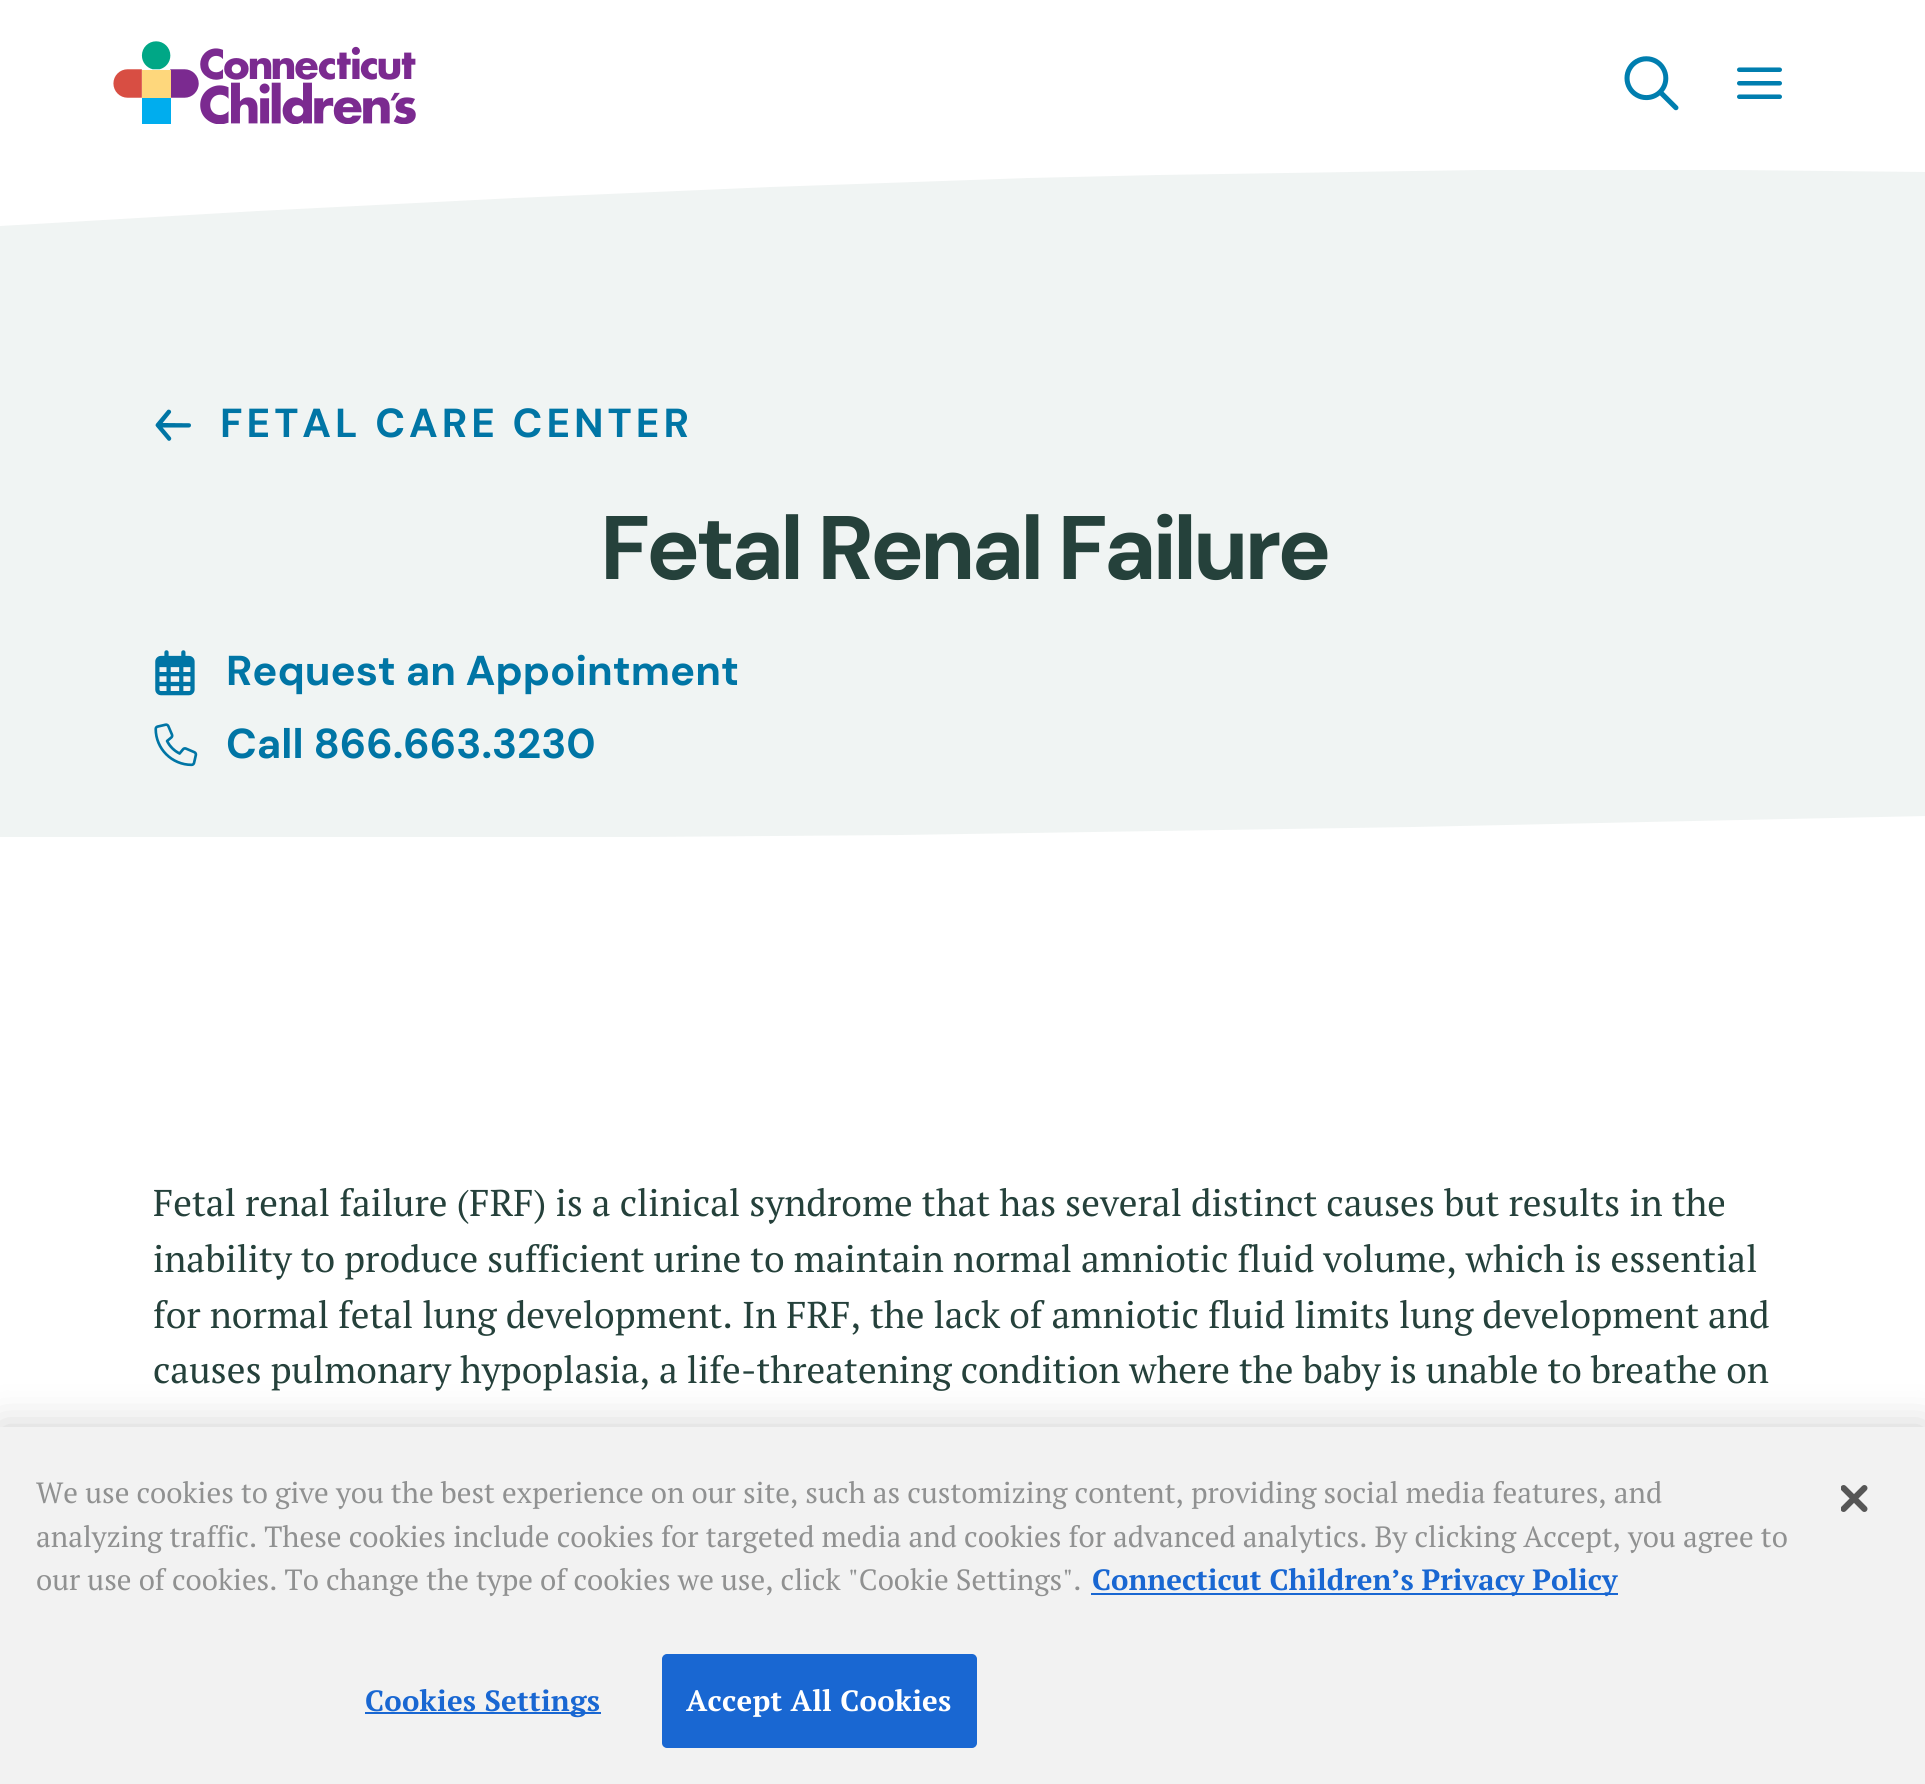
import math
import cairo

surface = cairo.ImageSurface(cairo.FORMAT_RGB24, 1925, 1784)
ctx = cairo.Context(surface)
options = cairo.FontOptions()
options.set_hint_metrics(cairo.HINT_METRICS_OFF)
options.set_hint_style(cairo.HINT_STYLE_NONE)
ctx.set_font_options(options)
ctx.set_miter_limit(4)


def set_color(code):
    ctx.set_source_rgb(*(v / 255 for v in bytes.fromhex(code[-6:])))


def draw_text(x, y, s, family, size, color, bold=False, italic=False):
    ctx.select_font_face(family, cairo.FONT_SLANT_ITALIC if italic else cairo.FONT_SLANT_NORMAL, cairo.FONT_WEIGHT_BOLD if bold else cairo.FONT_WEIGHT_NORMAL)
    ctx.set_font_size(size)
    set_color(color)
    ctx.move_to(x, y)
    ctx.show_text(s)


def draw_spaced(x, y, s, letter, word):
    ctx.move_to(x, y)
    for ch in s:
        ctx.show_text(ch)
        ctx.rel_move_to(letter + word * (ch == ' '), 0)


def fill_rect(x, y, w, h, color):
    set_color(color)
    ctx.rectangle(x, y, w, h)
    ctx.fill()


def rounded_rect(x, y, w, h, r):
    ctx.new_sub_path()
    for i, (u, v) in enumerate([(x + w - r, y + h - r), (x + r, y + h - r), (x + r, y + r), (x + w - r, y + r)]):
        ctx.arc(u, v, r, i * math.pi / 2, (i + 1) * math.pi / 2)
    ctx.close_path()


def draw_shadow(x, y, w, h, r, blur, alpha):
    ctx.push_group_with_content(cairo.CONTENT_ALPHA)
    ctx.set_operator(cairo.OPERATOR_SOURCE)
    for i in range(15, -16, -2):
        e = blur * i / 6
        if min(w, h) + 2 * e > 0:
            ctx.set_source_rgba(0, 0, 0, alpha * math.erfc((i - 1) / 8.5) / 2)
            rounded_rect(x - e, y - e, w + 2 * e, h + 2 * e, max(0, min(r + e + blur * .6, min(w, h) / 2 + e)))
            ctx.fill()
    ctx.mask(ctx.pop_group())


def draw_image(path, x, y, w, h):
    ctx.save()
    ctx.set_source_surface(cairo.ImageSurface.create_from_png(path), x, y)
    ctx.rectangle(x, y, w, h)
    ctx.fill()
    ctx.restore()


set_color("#ffffff")
ctx.paint()
draw_image("assets/img1.png", 113, 41, 303, 83)
draw_image("assets/img2.png", 1624, 56, 55, 55)
draw_image("assets/img3.png", 1737, 67, 45, 32)
fill_rect(0, 170, 1925, 667, "#f0f4f3")
set_color("#ffffff")
ctx.new_path()
ctx.move_to(0, 164)
ctx.line_to(0, 226)
ctx.line_to(257, 211)
ctx.line_to(514, 198)
ctx.line_to(770, 187)
ctx.line_to(1027, 178)
ctx.line_to(1156, 175)
ctx.line_to(1284, 173)
ctx.line_to(1477, 170)
ctx.line_to(1605, 170)
ctx.line_to(1733, 170)
ctx.line_to(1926, 172)
ctx.line_to(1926, 164)
ctx.close_path()
ctx.fill()
draw_image("assets/img4.png", 155, 409, 36, 32)
ctx.select_font_face("DM Sans", cairo.FONT_SLANT_NORMAL, cairo.FONT_WEIGHT_BOLD)
ctx.set_font_size(40.5)
set_color("#0075a5")
draw_spaced(220, 437, "FETAL CARE CENTER", 4, 0)
ctx.set_font_size(90)
set_color("#25413b")
draw_spaced(600, 579, "Fetal Renal Failure", -4, 0)
draw_image("assets/img5.png", 155, 650, 40, 46)
draw_text(226, 685, "Request an Appointment", "DM Sans", 41.75, "#0075a5", bold=True)
draw_image("assets/img6.png", 154, 723, 44, 44)
draw_text(226, 758, "Call 866.663.3230", "DM Sans", 41.75, "#0075a5", bold=True)
set_color("#ffffff")
ctx.new_path()
ctx.move_to(0, 837)
ctx.line_to(0, 839)
ctx.line_to(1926, 839)
ctx.line_to(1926, 816)
ctx.line_to(1412, 827)
ctx.line_to(1156, 831)
ctx.line_to(899, 835)
ctx.line_to(642, 837)
ctx.line_to(449, 838)
ctx.line_to(193, 838)
ctx.close_path()
ctx.fill()
draw_text(153, 1216, "Fetal renal failure (FRF) is a clinical syndrome that has several distinct causes but results in the", "PT Serif", 37.25, "#25413b")
draw_spaced(153, 1272, "inability to produce sufficient urine to maintain normal amniotic fluid volume, which is essential", 0, -0.1)
draw_text(153, 1328, "for normal fetal lung development. In FRF, the lack of amniotic fluid limits lung development and", "PT Serif", 37.25, "#25413b")
draw_spaced(153, 1383, "causes pulmonary hypoplasia, a life-threatening condition where the baby is unable to breathe on", 0, -0.1)
set_color("#000000")
draw_shadow(0, 1427, 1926, 357, 0, 20, 0.2)
fill_rect(0, 1427, 1925, 357, "#f2f2f2")
draw_text(36, 1503, "We use cookies to give you the best experience on our site, such as customizing content, providing social media features, and", "PT Serif", 29.27, "#909191")
draw_text(36, 1547, "analyzing traffic. These cookies include cookies for targeted media and cookies for advanced analytics. By clicking Accept, you agree to", "PT Serif", 29.27, "#909191")
draw_text(36, 1590, "our use of cookies. To change the type of cookies we use, click \"Cookie Settings\".", "PT Serif", 29.27, "#909191")
fill_rect(1091, 1593, 527, 2, "#1967d2")
draw_text(1092, 1590, "Connecticut Children’s Privacy Policy", "PT Serif", 29.27, "#1967d2", bold=True)
fill_rect(365, 1712, 236, 2, "#1967d2")
draw_spaced(365, 1711, "Cookies Settings", 0.25, 0)
rounded_rect(663, 1655, 313, 92, 4)
ctx.fill_preserve()
ctx.stroke()
set_color("#ffffff")
draw_spaced(686, 1711, "Accept All Cookies", 0.25, 0)
draw_image("assets/img7.png", 1841, 1485, 27, 27)
surface.write_to_png("output.png")
